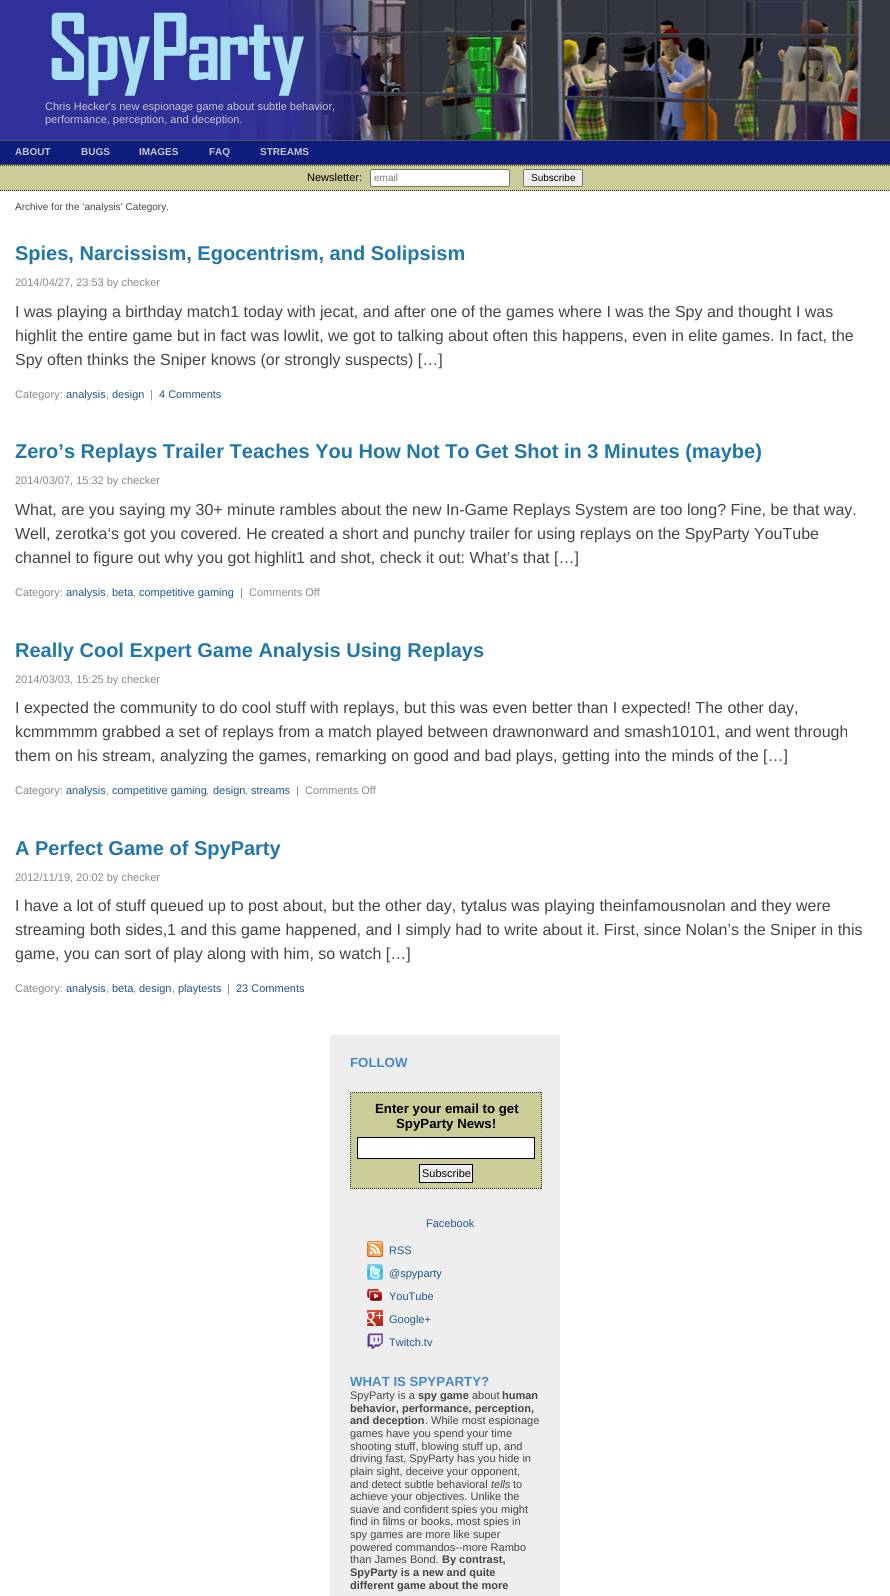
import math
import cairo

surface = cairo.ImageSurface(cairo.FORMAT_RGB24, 890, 1596)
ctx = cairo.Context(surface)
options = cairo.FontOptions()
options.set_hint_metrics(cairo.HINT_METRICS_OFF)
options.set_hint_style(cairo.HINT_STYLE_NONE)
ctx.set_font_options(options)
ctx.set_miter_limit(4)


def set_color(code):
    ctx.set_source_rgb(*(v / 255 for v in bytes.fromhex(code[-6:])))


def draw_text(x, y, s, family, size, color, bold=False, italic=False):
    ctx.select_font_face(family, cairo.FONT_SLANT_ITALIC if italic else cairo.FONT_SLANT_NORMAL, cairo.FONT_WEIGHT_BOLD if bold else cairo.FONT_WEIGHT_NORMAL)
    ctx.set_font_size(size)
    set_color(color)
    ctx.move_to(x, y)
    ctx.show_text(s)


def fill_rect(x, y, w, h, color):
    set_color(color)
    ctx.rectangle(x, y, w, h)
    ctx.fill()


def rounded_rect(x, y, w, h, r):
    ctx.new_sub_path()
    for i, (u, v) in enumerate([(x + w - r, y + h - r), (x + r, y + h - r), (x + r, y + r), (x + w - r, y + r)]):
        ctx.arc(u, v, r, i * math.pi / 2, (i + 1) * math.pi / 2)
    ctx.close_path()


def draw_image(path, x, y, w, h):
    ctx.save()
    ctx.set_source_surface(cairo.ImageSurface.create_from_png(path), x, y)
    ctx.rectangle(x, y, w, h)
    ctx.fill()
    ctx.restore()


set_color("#ffffff")
ctx.paint()
fill_rect(864, 0, 26, 140, "#373a40")
draw_image("assets/img1.png", 0, 0, 864, 140)
draw_image("assets/img2.png", 51, 12, 253, 84)
draw_text(45, 110, "Chris Hecker's new espionage game about subtle behavior,", "Liberation Sans", 11, "#c6c8c9")
draw_text(45, 123, "performance, perception, and deception.", "Liberation Sans", 11, "#c6c8c9")
fill_rect(0, 141, 890, 23, "#0d1c7d")
fill_rect(0, 140, 890, 1, "#555555")
fill_rect(0, 164, 890, 1, "#555555")
draw_text(15, 155, "ABOUT", "Liberation Sans", 10, "#c6c8c9", bold=True)
draw_text(81, 155, "BUGS", "Liberation Sans", 10, "#c6c8c9", bold=True)
draw_text(139, 155, "IMAGES", "Liberation Sans", 10, "#c6c8c9", bold=True)
draw_text(209, 155, "FAQ", "Liberation Sans", 10, "#c6c8c9", bold=True)
draw_text(260, 155, "STREAMS", "Liberation Sans", 10, "#c6c8c9", bold=True)
fill_rect(0, 165, 890, 26, "#cccc99")
ctx.new_path()
ctx.move_to(0, 165.5)
ctx.line_to(890, 165.5)
set_color("#333333")
ctx.set_line_width(1)
ctx.set_dash([1, 1])
ctx.stroke()
ctx.new_path()
ctx.move_to(0, 190.5)
ctx.line_to(890, 190.5)
ctx.stroke()
draw_text(307, 181, "Newsletter:", "Liberation Sans", 11, "#000000")
set_color("#ffffff")
rounded_rect(370.5, 169.5, 139, 17, 1.5)
ctx.fill_preserve()
set_color("#767676")
ctx.set_dash([])
ctx.stroke()
draw_text(374, 181, "email", "Liberation Sans", 10, "#757575")
set_color("#efefef")
rounded_rect(523.5, 169.5, 59, 17, 1.5)
ctx.fill_preserve()
set_color("#767676")
ctx.stroke()
draw_text(531, 181, "Subscribe", "Liberation Sans", 10, "#000000")
draw_text(15, 210, "Archive for the ‘analysis’ Category.", "Liberation Sans", 10, "#444444")
draw_text(15, 260, "Spies, Narcissism, Egocentrism, and Solipsism", "Liberation Sans", 20, "#2277aa", bold=True)
draw_text(15, 286, "2014/04/27, 23:53 by checker", "Liberation Sans", 11, "#888888")
draw_text(15, 317, "I was playing a birthday match1 today with jecat, and after one of the games where I was the Spy and thought I was", "Liberation Sans", 16, "#444444")
draw_text(15, 341, "highlit the entire game but in fact was lowlit, we got to talking about often this happens, even in elite games. In fact, the", "Liberation Sans", 16, "#444444")
draw_text(15, 365, "Spy often thinks the Sniper knows (or strongly suspects) […]", "Liberation Sans", 16, "#444444")
draw_text(15, 398, "Category:", "Liberation Sans", 11, "#888888")
draw_text(66, 398, "analysis", "Liberation Sans", 11, "#225588")
draw_text(106, 398, ",", "Liberation Sans", 11, "#888888")
draw_text(112, 398, "design", "Liberation Sans", 11, "#225588")
draw_text(150, 398, "|", "Liberation Sans", 11, "#888888")
draw_text(159, 398, "4 Comments", "Liberation Sans", 11, "#225588")
draw_text(15, 458, "Zero’s Replays Trailer Teaches You How Not To Get Shot in 3 Minutes (maybe)", "Liberation Sans", 20, "#2277aa", bold=True)
draw_text(15, 484, "2014/03/07, 15:32 by checker", "Liberation Sans", 11, "#888888")
draw_text(15, 515, "What, are you saying my 30+ minute rambles about the new In-Game Replays System are too long? Fine, be that way.", "Liberation Sans", 16, "#444444")
draw_text(15, 539, "Well, zerotka‘s got you covered. He created a short and punchy trailer for using replays on the SpyParty YouTube", "Liberation Sans", 16, "#444444")
draw_text(15, 563, "channel to figure out why you got highlit1 and shot, check it out: What’s that […]", "Liberation Sans", 16, "#444444")
draw_text(15, 596, "Category:", "Liberation Sans", 11, "#888888")
draw_text(66, 596, "analysis", "Liberation Sans", 11, "#225588")
draw_text(106, 596, ",", "Liberation Sans", 11, "#888888")
draw_text(112, 596, "beta", "Liberation Sans", 11, "#225588")
draw_text(133, 596, ",", "Liberation Sans", 11, "#888888")
draw_text(139, 596, "competitive gaming", "Liberation Sans", 11, "#225588")
draw_text(240, 596, "|", "Liberation Sans", 11, "#888888")
draw_text(249, 596, "Comments Off", "Liberation Sans", 11, "#888888")
draw_text(15, 657, "Really Cool Expert Game Analysis Using Replays", "Liberation Sans", 20, "#2277aa", bold=True)
draw_text(15, 683, "2014/03/03, 15:25 by checker", "Liberation Sans", 11, "#888888")
draw_text(15, 713, "I expected the community to do cool stuff with replays, but this was even better than I expected! The other day,", "Liberation Sans", 16, "#444444")
draw_text(15, 737, "kcmmmmm grabbed a set of replays from a match played between drawnonward and smash10101, and went through", "Liberation Sans", 16, "#444444")
draw_text(15, 761, "them on his stream, analyzing the games, remarking on good and bad plays, getting into the minds of the […]", "Liberation Sans", 16, "#444444")
draw_text(15, 794, "Category:", "Liberation Sans", 11, "#888888")
draw_text(66, 794, "analysis", "Liberation Sans", 11, "#225588")
draw_text(106, 794, ",", "Liberation Sans", 11, "#888888")
draw_text(112, 794, "competitive gaming", "Liberation Sans", 11, "#225588")
draw_text(206, 794, ",", "Liberation Sans", 11, "#888888")
draw_text(213, 794, "design", "Liberation Sans", 11, "#225588")
draw_text(245, 794, ",", "Liberation Sans", 11, "#888888")
draw_text(251, 794, "streams", "Liberation Sans", 11, "#225588")
draw_text(296, 794, "|", "Liberation Sans", 11, "#888888")
draw_text(305, 794, "Comments Off", "Liberation Sans", 11, "#888888")
draw_text(15, 855, "A Perfect Game of SpyParty", "Liberation Sans", 20, "#2277aa", bold=True)
draw_text(15, 881, "2012/11/19, 20:02 by checker", "Liberation Sans", 11, "#888888")
draw_text(15, 911, "I have a lot of stuff queued up to post about, but the other day, tytalus was playing theinfamousnolan and they were", "Liberation Sans", 16, "#444444")
draw_text(15, 935, "streaming both sides,1 and this game happened, and I simply had to write about it. First, since Nolan’s the Sniper in this", "Liberation Sans", 16, "#444444")
draw_text(15, 959, "game, you can sort of play along with him, so watch […]", "Liberation Sans", 16, "#444444")
draw_text(15, 992, "Category:", "Liberation Sans", 11, "#888888")
draw_text(66, 992, "analysis", "Liberation Sans", 11, "#225588")
draw_text(106, 992, ",", "Liberation Sans", 11, "#888888")
draw_text(112, 992, "beta", "Liberation Sans", 11, "#225588")
draw_text(133, 992, ",", "Liberation Sans", 11, "#888888")
draw_text(139, 992, "design", "Liberation Sans", 11, "#225588")
draw_text(172, 992, ",", "Liberation Sans", 11, "#888888")
draw_text(178, 992, "playtests", "Liberation Sans", 11, "#225588")
draw_text(227, 992, "|", "Liberation Sans", 11, "#888888")
draw_text(236, 992, "23 Comments", "Liberation Sans", 11, "#225588")
fill_rect(330, 1035, 230, 561, "#eeeeee")
draw_text(350, 1067, "FOLLOW", "Liberation Sans", 13.25, "#4588c4", bold=True)
fill_rect(350, 1092, 192, 97, "#cccc99")
ctx.new_path()
ctx.move_to(350, 1092.5)
ctx.line_to(542, 1092.5)
set_color("#333333")
ctx.set_dash([1, 1])
ctx.stroke()
ctx.new_path()
ctx.move_to(541.5, 1092)
ctx.line_to(541.5, 1189)
ctx.stroke()
ctx.new_path()
ctx.move_to(350, 1188.5)
ctx.line_to(542, 1188.5)
ctx.stroke()
ctx.new_path()
ctx.move_to(350.5, 1092)
ctx.line_to(350.5, 1189)
ctx.stroke()
draw_text(375, 1113, "Enter your email to get", "Liberation Sans", 13.25, "#000000", bold=True)
draw_text(396, 1128, "SpyParty News!", "Liberation Sans", 13.25, "#000000", bold=True)
set_color("#ffffff")
ctx.rectangle(357.5, 1137.5, 177, 21)
ctx.fill_preserve()
set_color("#000000")
ctx.set_dash([])
ctx.stroke()
set_color("#efefef")
ctx.rectangle(419.5, 1164.5, 53, 18)
ctx.fill_preserve()
set_color("#000000")
ctx.stroke()
draw_text(422, 1177, "Subscribe", "Liberation Sans", 11, "#000000")
draw_text(426, 1227, "Facebook", "Liberation Sans", 11, "#225588")
draw_image("assets/img3.png", 367, 1241, 16, 16)
draw_text(389, 1254, "RSS", "Liberation Sans", 11, "#225588")
draw_image("assets/img4.png", 367, 1264, 16, 16)
draw_text(389, 1277, "@spyparty", "Liberation Sans", 11, "#225588")
draw_image("assets/img5.png", 367, 1289, 15, 12)
draw_text(389, 1300, "YouTube", "Liberation Sans", 11, "#225588")
draw_image("assets/img6.png", 367, 1310, 16, 16)
draw_text(389, 1323, "Google+", "Liberation Sans", 11, "#225588")
draw_image("assets/img7.png", 367, 1333, 16, 16)
draw_text(389, 1346, "Twitch.tv", "Liberation Sans", 11, "#225588")
draw_text(350, 1386, "WHAT IS SPYPARTY?", "Liberation Sans", 13.25, "#4588c4", bold=True)
draw_text(350, 1399, "SpyParty is a", "Liberation Sans", 11, "#444444")
draw_text(418, 1399, "spy game", "Liberation Sans", 11, "#444444", bold=True)
draw_text(472, 1399, "about", "Liberation Sans", 11, "#444444")
draw_text(502, 1399, "human", "Liberation Sans", 11, "#444444", bold=True)
draw_text(350, 1412, "behavior, performance, perception,", "Liberation Sans", 11, "#444444", bold=True)
draw_text(350, 1424, "and deception", "Liberation Sans", 11, "#444444", bold=True)
draw_text(425, 1424, ". While most espionage", "Liberation Sans", 11, "#444444")
draw_text(350, 1437, "games have you spend your time", "Liberation Sans", 11, "#444444")
draw_text(350, 1450, "shooting stuff, blowing stuff up, and", "Liberation Sans", 11, "#444444")
draw_text(350, 1462, "driving fast, SpyParty has you hide in", "Liberation Sans", 11, "#444444")
draw_text(350, 1475, "plain sight, deceive your opponent,", "Liberation Sans", 11, "#444444")
draw_text(350, 1488, "and detect subtle behavioral", "Liberation Sans", 11, "#444444")
draw_text(491, 1488, "tells", "Liberation Sans", 11, "#444444", italic=True)
draw_text(513, 1488, "to", "Liberation Sans", 11, "#444444")
draw_text(350, 1500, "achieve your objectives. Unlike the", "Liberation Sans", 11, "#444444")
draw_text(350, 1513, "suave and confident spies you might", "Liberation Sans", 11, "#444444")
draw_text(350, 1525, "find in films or books, most spies in", "Liberation Sans", 11, "#444444")
draw_text(350, 1538, "spy games are more like super", "Liberation Sans", 11, "#444444")
draw_text(350, 1551, "powered commandos--more Rambo", "Liberation Sans", 11, "#444444")
draw_text(350, 1563, "than James Bond.", "Liberation Sans", 11, "#444444")
draw_text(442, 1563, "By contrast,", "Liberation Sans", 11, "#444444", bold=True)
draw_text(350, 1576, "SpyParty is a new and quite", "Liberation Sans", 11, "#444444", bold=True)
draw_text(350, 1589, "different game about the more", "Liberation Sans", 11, "#444444", bold=True)
surface.write_to_png("output.png")
